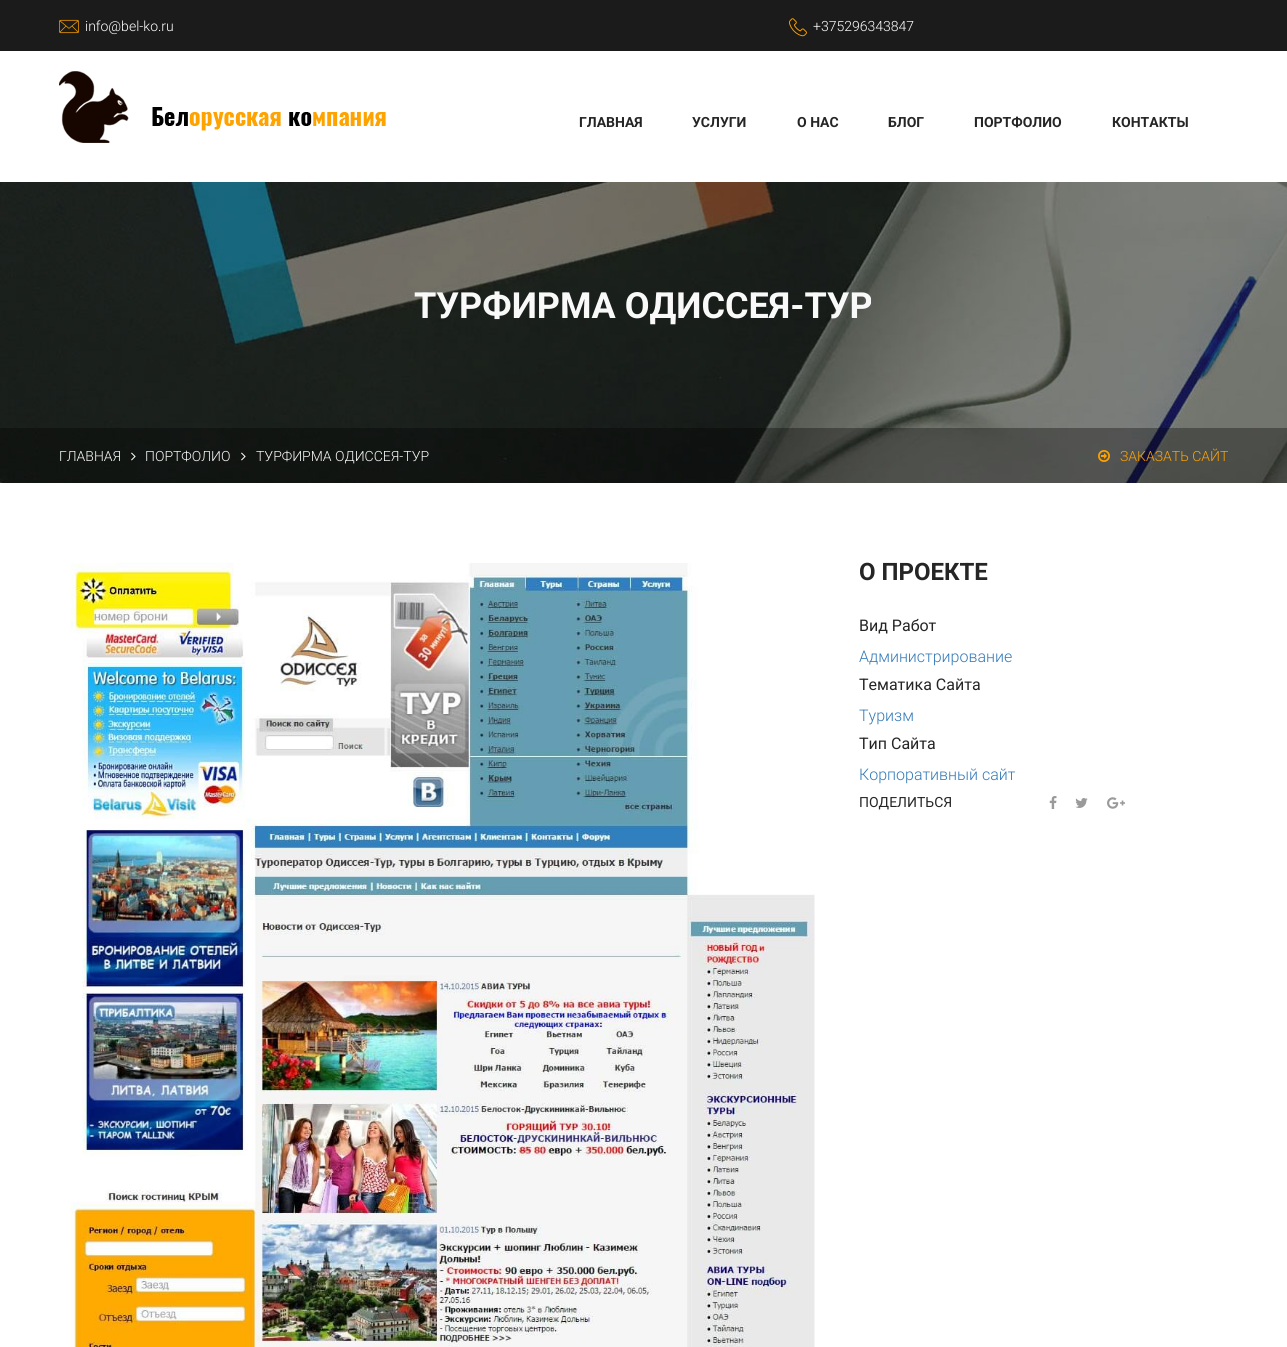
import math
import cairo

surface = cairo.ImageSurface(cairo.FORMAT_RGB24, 1287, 1347)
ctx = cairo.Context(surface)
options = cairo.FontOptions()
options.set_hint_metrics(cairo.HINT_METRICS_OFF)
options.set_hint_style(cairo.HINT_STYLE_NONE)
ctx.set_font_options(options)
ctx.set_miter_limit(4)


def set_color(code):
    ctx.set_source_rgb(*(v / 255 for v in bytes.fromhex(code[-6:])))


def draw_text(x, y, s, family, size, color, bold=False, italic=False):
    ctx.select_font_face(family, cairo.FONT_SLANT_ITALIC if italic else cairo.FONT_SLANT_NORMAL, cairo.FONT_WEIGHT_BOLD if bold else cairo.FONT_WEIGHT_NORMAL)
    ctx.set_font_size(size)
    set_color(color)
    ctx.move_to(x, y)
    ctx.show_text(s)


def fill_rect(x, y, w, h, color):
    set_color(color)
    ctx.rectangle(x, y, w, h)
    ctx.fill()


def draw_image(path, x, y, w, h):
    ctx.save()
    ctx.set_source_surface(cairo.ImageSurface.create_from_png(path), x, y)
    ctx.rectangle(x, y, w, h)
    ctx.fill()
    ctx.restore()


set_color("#ffffff")
ctx.paint()
fill_rect(0, 0, 1287, 51, "#1b1b1b")
draw_image("assets/img1.png", 59, 19, 20, 15)
draw_text(85, 31, "info@bel-ko.ru", "Roboto Light", 14, "#ffffff")
draw_image("assets/img2.png", 789, 18, 18, 19)
draw_text(813, 31, "+375296343847", "Roboto Light", 14, "#ffffff")
draw_image("assets/img3.png", 59, 71, 327, 72)
draw_text(579, 127, "ГЛАВНАЯ", "Roboto", 14, "#252525", bold=True)
draw_text(692, 127, "УСЛУГИ", "Roboto", 14, "#252525", bold=True)
draw_text(797, 127, "О НАС", "Roboto", 14, "#252525", bold=True)
draw_text(888, 127, "БЛОГ", "Roboto", 14, "#252525", bold=True)
draw_text(974, 127, "ПОРТФОЛИО", "Roboto", 14, "#252525", bold=True)
draw_text(1112, 127, "КОНТАКТЫ", "Roboto", 14, "#252525", bold=True)
draw_image("assets/img4.png", 0, 182, 1287, 301)
draw_text(414, 318, "ТУРФИРМА ОДИССЕЯ-ТУР", "Roboto", 36, "#f9f9f9", bold=True)
ctx.set_source_rgba(0, 0, 0, 0.33)
ctx.rectangle(0, 428, 1287, 55)
ctx.fill()
draw_text(59, 461, "ГЛАВНАЯ", "Roboto Light", 14, "#f9f9f9")
draw_image("assets/img5.png", 131, 452, 5, 9)
draw_text(145, 461, "ПОРТФОЛИО", "Roboto Light", 14, "#f9f9f9")
draw_image("assets/img6.png", 241, 452, 5, 9)
draw_text(256, 461, "ТУРФИРМА ОДИССЕЯ-ТУР", "Roboto Light", 14, "#f9f9f9")
draw_image("assets/img7.png", 1098, 450, 12, 12)
draw_text(1120, 461, "ЗАКАЗАТЬ САЙТ", "Roboto Light", 14, "#ffa200")
draw_image("assets/img8.png", 70, 563, 745, 784)
draw_text(859, 580, "О ПРОЕКТЕ", "Roboto", 24, "#252525", bold=True)
draw_text(859, 631, "Вид Работ", "Roboto", 16, "#252525")
draw_text(859, 662, "Администрирование", "Roboto Light", 16, "#337ab7")
draw_text(859, 690, "Тематика Сайта", "Roboto", 16, "#252525")
draw_text(859, 721, "Туризм", "Roboto Light", 16, "#337ab7")
draw_text(859, 749, "Тип Сайта", "Roboto", 16, "#252525")
draw_text(859, 780, "Корпоративный сайт", "Roboto Light", 16, "#337ab7")
draw_text(859, 807, "ПОДЕЛИТЬСЯ", "Roboto", 14, "#252525")
draw_image("assets/img9.png", 1049, 796, 8, 13)
draw_image("assets/img10.png", 1075, 798, 13, 10)
draw_image("assets/img11.png", 1107, 797, 18, 12)
surface.write_to_png("output.png")
